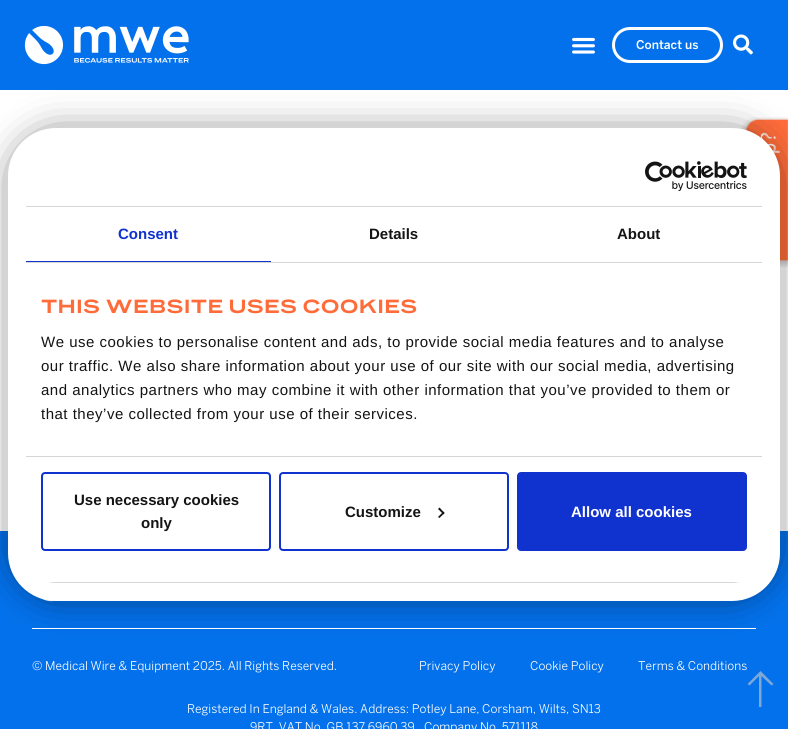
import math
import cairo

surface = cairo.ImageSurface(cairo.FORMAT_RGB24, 788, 729)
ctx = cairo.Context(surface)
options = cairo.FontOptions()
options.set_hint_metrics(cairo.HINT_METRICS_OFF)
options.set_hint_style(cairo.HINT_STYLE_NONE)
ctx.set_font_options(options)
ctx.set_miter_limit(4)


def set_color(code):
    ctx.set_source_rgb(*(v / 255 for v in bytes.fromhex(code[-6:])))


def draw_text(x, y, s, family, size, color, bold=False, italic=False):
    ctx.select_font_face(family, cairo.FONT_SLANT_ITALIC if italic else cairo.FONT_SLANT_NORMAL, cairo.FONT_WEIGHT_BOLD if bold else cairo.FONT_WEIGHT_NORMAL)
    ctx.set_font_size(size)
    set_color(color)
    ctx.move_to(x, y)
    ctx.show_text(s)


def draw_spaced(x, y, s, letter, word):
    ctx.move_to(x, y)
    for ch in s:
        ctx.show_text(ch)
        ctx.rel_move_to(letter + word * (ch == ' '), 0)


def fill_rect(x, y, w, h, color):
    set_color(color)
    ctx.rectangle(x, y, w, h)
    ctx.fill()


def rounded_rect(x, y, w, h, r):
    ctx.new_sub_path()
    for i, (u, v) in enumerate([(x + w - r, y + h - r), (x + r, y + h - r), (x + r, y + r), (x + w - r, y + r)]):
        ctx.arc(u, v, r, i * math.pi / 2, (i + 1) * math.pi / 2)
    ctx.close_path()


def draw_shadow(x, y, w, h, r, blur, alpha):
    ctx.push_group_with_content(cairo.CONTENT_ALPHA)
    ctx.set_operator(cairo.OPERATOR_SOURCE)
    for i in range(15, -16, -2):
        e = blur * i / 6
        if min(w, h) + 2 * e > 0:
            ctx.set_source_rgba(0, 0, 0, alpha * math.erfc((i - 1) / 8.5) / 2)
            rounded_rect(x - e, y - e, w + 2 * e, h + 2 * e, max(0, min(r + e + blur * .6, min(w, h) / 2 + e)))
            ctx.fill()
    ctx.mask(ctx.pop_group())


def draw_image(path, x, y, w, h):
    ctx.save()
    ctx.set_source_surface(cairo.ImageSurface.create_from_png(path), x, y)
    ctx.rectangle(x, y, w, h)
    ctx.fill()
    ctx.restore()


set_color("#ffffff")
ctx.paint()
fill_rect(0, 0, 788, 90, "#0371eb")
draw_image("assets/img1.png", 24, 25, 165, 40)
draw_image("assets/img2.png", 572, 37, 23, 17)
rounded_rect(613.5, 28.5, 108, 33, 16.5)
set_color("#fdfdfd")
ctx.set_line_width(3)
ctx.stroke()
draw_text(636, 49, "Contact us", "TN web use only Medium", 12, "#ffffff")
draw_image("assets/img3.png", 733, 34, 20, 21)
fill_rect(0, 531, 788, 198, "#0371eb")
set_color("#7ea8d6")
ctx.new_path()
ctx.move_to(747.5, 684)
ctx.line_to(749.5, 685.5)
ctx.line_to(759, 676)
ctx.line_to(759, 707)
ctx.line_to(761.5, 707)
ctx.line_to(761.5, 676)
ctx.line_to(771.5, 685.5)
ctx.line_to(773.5, 684)
ctx.line_to(760.5, 671)
ctx.close_path()
ctx.fill()
draw_image("assets/img4.png", 741, 117, 47, 151)
draw_image("assets/img5.png", 39, 597, 17, 5)
fill_rect(32, 628, 724, 1, "#ffffff")
draw_text(32, 670, "© Medical Wire & Equipment 2025. All Rights Reserved.", "TN web use only Light", 12, "#ffffff")
draw_text(419, 670, "Privacy Policy", "TN web use only Light", 12, "#ffffff")
draw_text(530, 670, "Cookie Policy", "TN web use only Light", 12, "#ffffff")
draw_text(638, 670, "Terms & Conditions", "TN web use only Light", 12, "#ffffff")
draw_text(187, 713, "Registered In England & Wales. Address: Potley Lane, Corsham, Wilts, SN13", "TN web use only Light", 12, "#ffffff")
draw_text(250, 731, "9RT. VAT No. GB 137 6960 39", "TN web use only Light", 12, "#ffffff")
draw_text(424, 731, "Company No. 571118", "TN web use only Light", 12, "#ffffff")
set_color("#000000")
draw_shadow(18, 138, 752, 453, 38, 20, 0.67)
set_color("#ffffff")
rounded_rect(17, 137, 754, 455, 39)
ctx.fill_preserve()
ctx.set_line_width(18)
ctx.stroke()
fill_rect(26, 206, 736, 1, "#d6d6d6")
draw_image("assets/img6.png", 645, 161, 102, 30)
fill_rect(26, 262, 736, 1, "#d6d6d6")
fill_rect(26, 261, 245, 1, "#1032cf")
draw_text(118, 239, "Consent", "Liberation Sans", 15, "#1032cf", bold=True)
draw_text(369, 239, "Details", "Liberation Sans", 15, "#141414", bold=True)
draw_text(617, 239, "About", "Liberation Sans", 15, "#141414", bold=True)
fill_rect(26, 456, 736, 1, "#d6d6d6")
ctx.select_font_face("TN web use only", cairo.FONT_SLANT_NORMAL, cairo.FONT_WEIGHT_BOLD)
ctx.set_font_size(18)
set_color("#ff6c3a")
draw_spaced(41, 313, "THIS WEBSITE USES COOKIES", 0.25, 0)
ctx.select_font_face("Liberation Sans")
ctx.set_font_size(15)
set_color("#141414")
draw_spaced(41, 347, "We use cookies to personalise content and ads, to provide social media features and to analyse", 0.5, 0)
draw_spaced(41, 371, "our traffic. We also share information about your use of our site with our social media, advertising", 0.5, 0)
draw_spaced(41, 395, "and analytics partners who may combine it with other information that you’ve provided to them or", 0.5, 0)
draw_spaced(41, 419, "that they’ve collected from your use of their services.", 0.5, 0)
ctx.save()
rounded_rect(26, 146, 736, 437, 30)
ctx.clip()
fill_rect(48, 582, 692, 1, "#d6d6d6")
ctx.restore()
rounded_rect(42, 473, 228, 77, 3)
set_color("#1032cf")
ctx.set_line_width(2)
ctx.stroke()
draw_text(74, 505, "Use necessary cookies", "Liberation Sans", 15, "#141414", bold=True)
draw_text(141, 528, "only", "Liberation Sans", 15, "#141414", bold=True)
rounded_rect(280, 473, 228, 77, 3)
set_color("#1032cf")
ctx.stroke()
draw_text(345, 517, "Customize", "Liberation Sans", 15, "#141414", bold=True)
ctx.new_path()
ctx.move_to(439.5, 507.5)
ctx.line_to(444.5, 513)
ctx.line_to(443.5, 514.5)
ctx.line_to(438, 509)
ctx.close_path()
ctx.fill()
ctx.new_path()
ctx.move_to(443.5, 511.5)
ctx.line_to(444.5, 513)
ctx.line_to(439.5, 518)
ctx.line_to(438, 517)
ctx.close_path()
ctx.fill()
set_color("#1032cf")
rounded_rect(518, 473, 228, 77, 3)
ctx.fill_preserve()
ctx.stroke()
draw_text(571, 517, "Allow all cookies", "Liberation Sans", 15, "#ffffff", bold=True)
surface.write_to_png("output.png")
